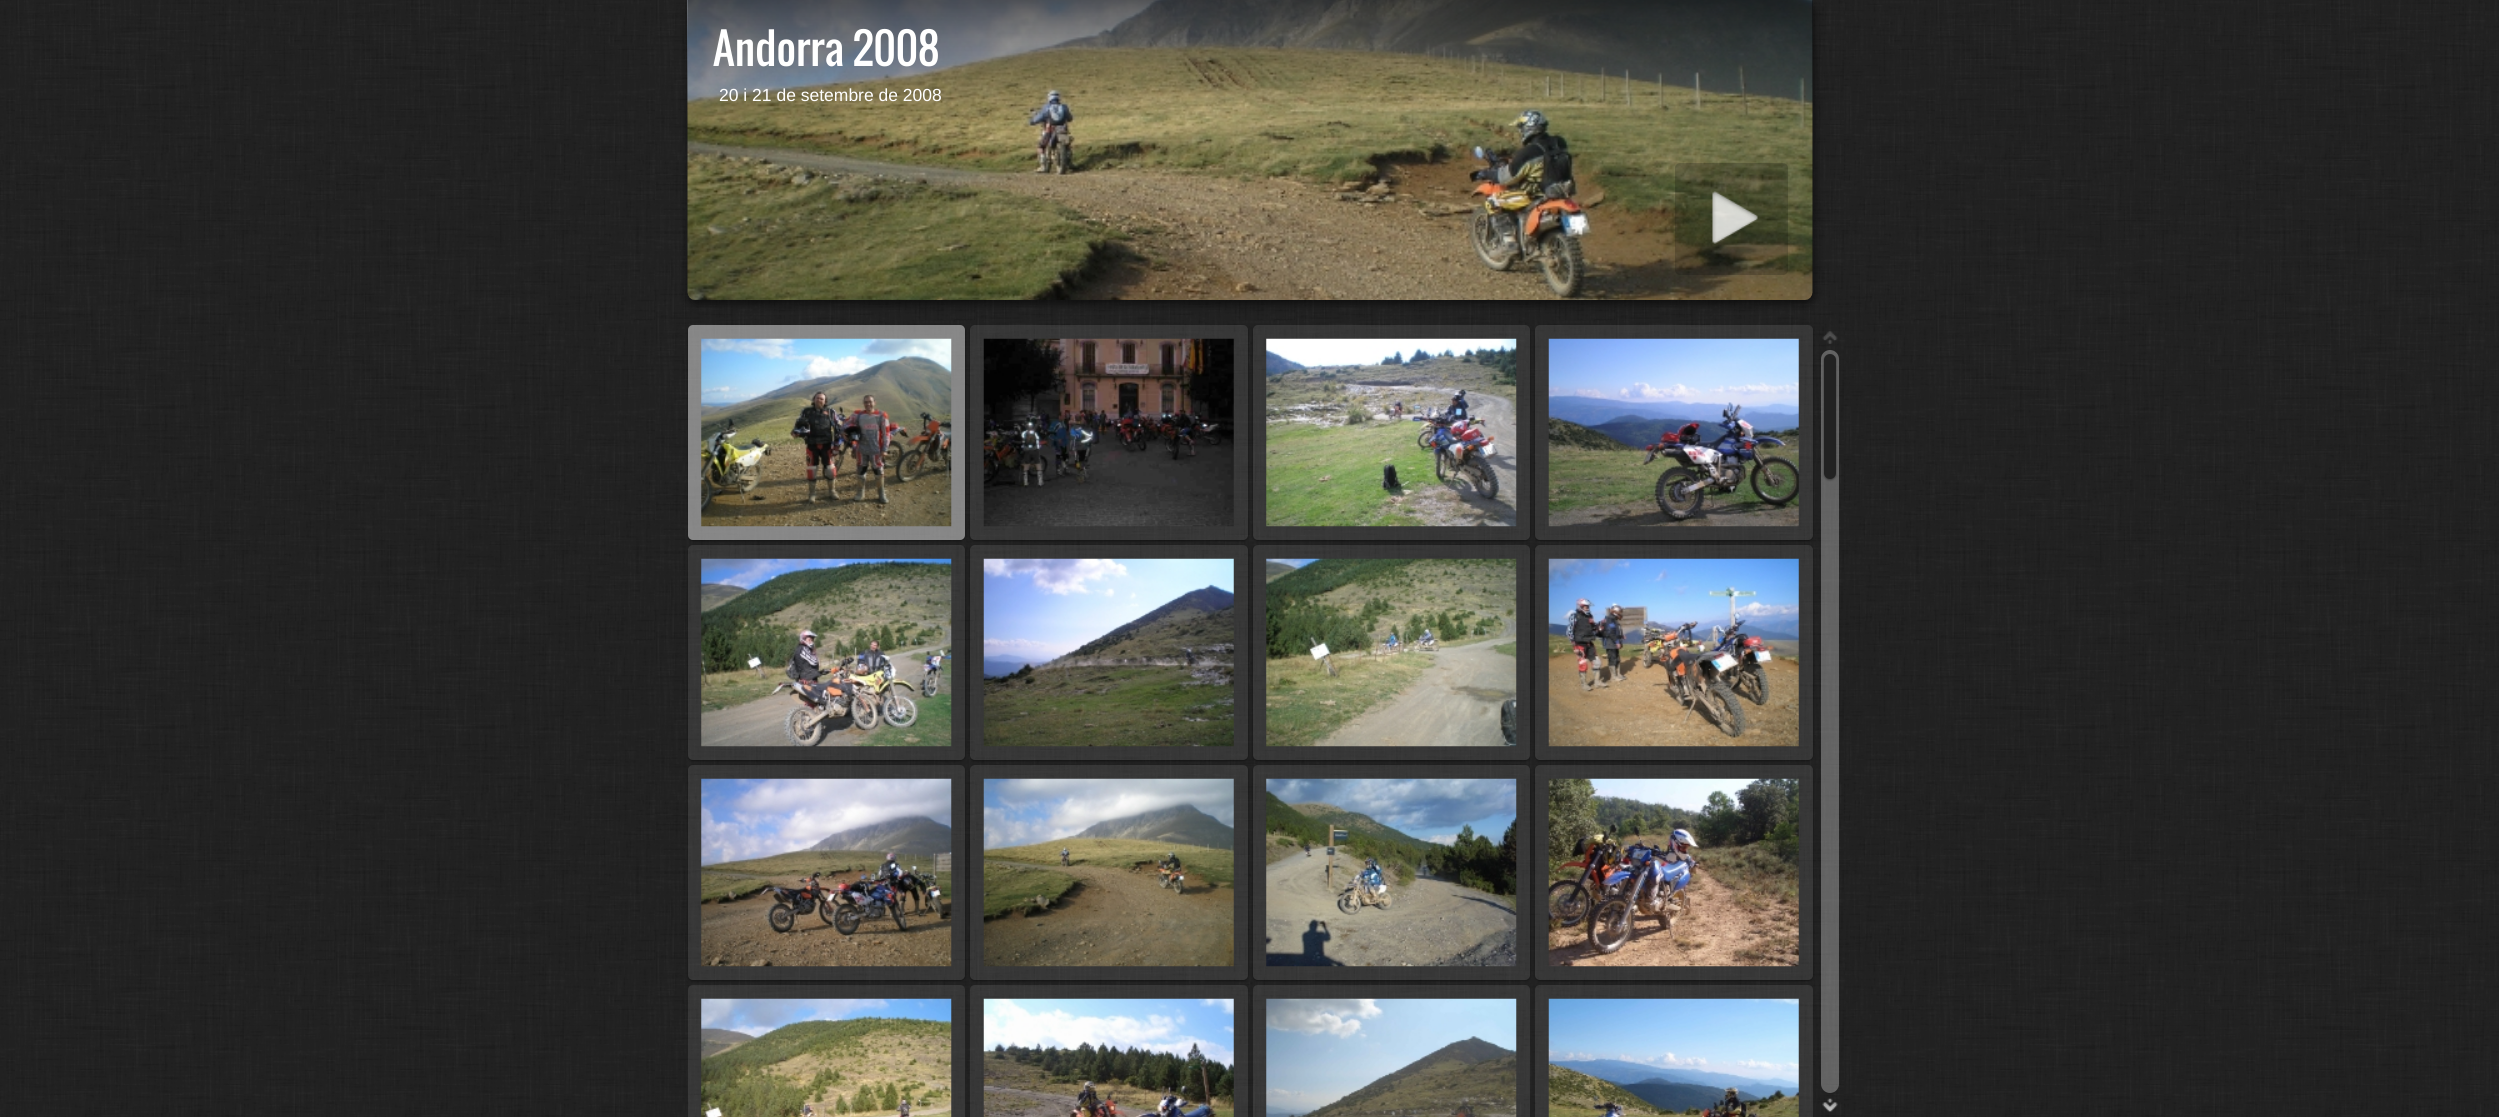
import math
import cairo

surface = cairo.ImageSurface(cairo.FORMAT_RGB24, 2499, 1117)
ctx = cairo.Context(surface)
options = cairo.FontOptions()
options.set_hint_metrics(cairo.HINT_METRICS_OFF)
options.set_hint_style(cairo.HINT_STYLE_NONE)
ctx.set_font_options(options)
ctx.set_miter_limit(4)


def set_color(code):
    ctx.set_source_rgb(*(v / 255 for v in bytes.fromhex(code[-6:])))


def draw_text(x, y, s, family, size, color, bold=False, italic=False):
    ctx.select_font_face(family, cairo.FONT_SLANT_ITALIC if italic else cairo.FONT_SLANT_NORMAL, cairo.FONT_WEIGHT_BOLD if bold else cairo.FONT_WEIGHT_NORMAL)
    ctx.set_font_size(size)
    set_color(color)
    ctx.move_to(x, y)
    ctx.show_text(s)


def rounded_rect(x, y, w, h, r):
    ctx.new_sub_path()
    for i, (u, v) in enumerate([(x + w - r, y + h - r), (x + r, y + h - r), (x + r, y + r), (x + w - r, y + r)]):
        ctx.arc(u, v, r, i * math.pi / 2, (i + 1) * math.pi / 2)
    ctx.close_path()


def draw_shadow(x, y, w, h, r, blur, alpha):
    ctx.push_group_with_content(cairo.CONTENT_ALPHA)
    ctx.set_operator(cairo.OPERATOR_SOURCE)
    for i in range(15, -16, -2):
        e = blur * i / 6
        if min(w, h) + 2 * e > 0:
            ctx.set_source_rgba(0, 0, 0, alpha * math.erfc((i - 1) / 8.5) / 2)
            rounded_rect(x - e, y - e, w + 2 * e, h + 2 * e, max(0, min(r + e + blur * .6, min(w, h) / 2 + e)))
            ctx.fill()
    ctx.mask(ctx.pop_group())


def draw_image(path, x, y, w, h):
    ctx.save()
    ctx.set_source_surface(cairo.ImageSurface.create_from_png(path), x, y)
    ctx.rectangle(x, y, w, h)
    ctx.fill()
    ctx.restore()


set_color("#222222")
ctx.paint()
draw_image("assets/img1.png", 0, 0, 2499, 1117)
set_color("#000000")
draw_shadow(689, 4, 1125, 300, 8, 5, 0.6)
ctx.set_source_rgba(0, 0, 0, 0.2)
ctx.new_path()
ctx.move_to(688, 0)
ctx.line_to(1813, 0)
ctx.line_to(1813, 292)
ctx.curve_to(1813, 296.5, 1809.5, 300, 1805, 300)
ctx.line_to(696, 300)
ctx.curve_to(691.5, 300, 688, 296.5, 688, 292)
ctx.close_path()
ctx.fill()
draw_image("assets/img2.png", 687, 0, 1126, 300)
gradient = cairo.LinearGradient(1250, 0, 1250, 124)
gradient.add_color_stop_rgba(0, 0, 0, 0, 0.6)
gradient.add_color_stop_rgba(1, 0, 0, 0, 0)
ctx.set_source(gradient)
ctx.rectangle(688, 0, 1125, 120)
ctx.fill()
draw_text(713, 66, "Andorra 2008", "Oswald", 42, "#ffffff")
draw_text(719, 101, "20 i 21 de setembre de 2008", "Liberation Sans", 17.5, "#ffffff")
ctx.set_source_rgba(0, 0, 0, 0.2)
rounded_rect(1675, 163, 113, 112, 5)
ctx.fill()
draw_image("assets/img3.png", 1712, 191, 46, 53)
ctx.save()
ctx.set_fill_rule(cairo.FILL_RULE_EVEN_ODD)
ctx.new_path()
ctx.move_to(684, 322)
ctx.line_to(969, 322)
ctx.line_to(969, 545)
ctx.line_to(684, 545)
ctx.close_path()
ctx.move_to(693, 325)
ctx.line_to(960, 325)
ctx.curve_to(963, 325, 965, 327, 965, 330)
ctx.line_to(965, 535)
ctx.curve_to(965, 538, 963, 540, 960, 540)
ctx.line_to(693, 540)
ctx.curve_to(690, 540, 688, 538, 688, 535)
ctx.line_to(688, 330)
ctx.curve_to(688, 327, 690, 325, 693, 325)
ctx.close_path()
ctx.clip()
set_color("#000000")
draw_shadow(688, 326, 277, 215, 5, 1, 0.4)
ctx.restore()
ctx.set_source_rgba(1, 1, 1, 0.1)
rounded_rect(688, 325, 277, 215, 5)
ctx.fill()
ctx.set_source_rgba(1, 1, 1, 0.4)
rounded_rect(688, 325, 277, 215, 5)
ctx.fill()
draw_image("assets/img4.png", 701, 338, 251, 189)
ctx.save()
ctx.set_fill_rule(cairo.FILL_RULE_EVEN_ODD)
ctx.new_path()
ctx.move_to(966, 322)
ctx.line_to(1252, 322)
ctx.line_to(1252, 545)
ctx.line_to(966, 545)
ctx.close_path()
ctx.move_to(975, 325)
ctx.line_to(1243, 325)
ctx.curve_to(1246, 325, 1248, 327, 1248, 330)
ctx.line_to(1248, 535)
ctx.curve_to(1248, 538, 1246, 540, 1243, 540)
ctx.line_to(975, 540)
ctx.curve_to(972, 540, 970, 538, 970, 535)
ctx.line_to(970, 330)
ctx.curve_to(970, 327, 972, 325, 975, 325)
ctx.close_path()
ctx.clip()
set_color("#000000")
draw_shadow(970, 326, 278, 215, 5, 1, 0.4)
ctx.restore()
ctx.set_source_rgba(1, 1, 1, 0.1)
rounded_rect(970, 325, 278, 215, 5)
ctx.fill()
draw_image("assets/img5.png", 983, 338, 251, 189)
ctx.save()
ctx.set_fill_rule(cairo.FILL_RULE_EVEN_ODD)
ctx.new_path()
ctx.move_to(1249, 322)
ctx.line_to(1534, 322)
ctx.line_to(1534, 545)
ctx.line_to(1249, 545)
ctx.close_path()
ctx.move_to(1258, 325)
ctx.line_to(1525, 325)
ctx.curve_to(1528, 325, 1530, 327, 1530, 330)
ctx.line_to(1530, 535)
ctx.curve_to(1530, 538, 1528, 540, 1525, 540)
ctx.line_to(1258, 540)
ctx.curve_to(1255, 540, 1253, 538, 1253, 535)
ctx.line_to(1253, 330)
ctx.curve_to(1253, 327, 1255, 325, 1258, 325)
ctx.close_path()
ctx.clip()
set_color("#000000")
draw_shadow(1253, 326, 277, 215, 5, 1, 0.4)
ctx.restore()
rounded_rect(1253, 325, 277, 215, 5)
ctx.fill()
draw_image("assets/img6.png", 1266, 338, 251, 189)
ctx.save()
ctx.set_fill_rule(cairo.FILL_RULE_EVEN_ODD)
ctx.new_path()
ctx.move_to(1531, 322)
ctx.line_to(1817, 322)
ctx.line_to(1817, 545)
ctx.line_to(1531, 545)
ctx.close_path()
ctx.move_to(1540, 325)
ctx.line_to(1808, 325)
ctx.curve_to(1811, 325, 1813, 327, 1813, 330)
ctx.line_to(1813, 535)
ctx.curve_to(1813, 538, 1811, 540, 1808, 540)
ctx.line_to(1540, 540)
ctx.curve_to(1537, 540, 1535, 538, 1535, 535)
ctx.line_to(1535, 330)
ctx.curve_to(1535, 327, 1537, 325, 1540, 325)
ctx.close_path()
ctx.clip()
set_color("#000000")
draw_shadow(1535, 326, 278, 215, 5, 1, 0.4)
ctx.restore()
rounded_rect(1535, 325, 278, 215, 5)
ctx.fill()
draw_image("assets/img7.png", 1548, 338, 251, 189)
ctx.save()
ctx.set_fill_rule(cairo.FILL_RULE_EVEN_ODD)
ctx.new_path()
ctx.move_to(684, 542)
ctx.line_to(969, 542)
ctx.line_to(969, 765)
ctx.line_to(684, 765)
ctx.close_path()
ctx.move_to(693, 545)
ctx.line_to(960, 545)
ctx.curve_to(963, 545, 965, 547, 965, 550)
ctx.line_to(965, 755)
ctx.curve_to(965, 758, 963, 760, 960, 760)
ctx.line_to(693, 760)
ctx.curve_to(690, 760, 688, 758, 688, 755)
ctx.line_to(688, 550)
ctx.curve_to(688, 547, 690, 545, 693, 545)
ctx.close_path()
ctx.clip()
set_color("#000000")
draw_shadow(688, 546, 277, 215, 5, 1, 0.4)
ctx.restore()
rounded_rect(688, 545, 277, 215, 5)
ctx.fill()
draw_image("assets/img8.png", 701, 558, 251, 189)
ctx.save()
ctx.set_fill_rule(cairo.FILL_RULE_EVEN_ODD)
ctx.new_path()
ctx.move_to(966, 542)
ctx.line_to(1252, 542)
ctx.line_to(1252, 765)
ctx.line_to(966, 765)
ctx.close_path()
ctx.move_to(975, 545)
ctx.line_to(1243, 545)
ctx.curve_to(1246, 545, 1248, 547, 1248, 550)
ctx.line_to(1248, 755)
ctx.curve_to(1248, 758, 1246, 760, 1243, 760)
ctx.line_to(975, 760)
ctx.curve_to(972, 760, 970, 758, 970, 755)
ctx.line_to(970, 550)
ctx.curve_to(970, 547, 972, 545, 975, 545)
ctx.close_path()
ctx.clip()
set_color("#000000")
draw_shadow(970, 546, 278, 215, 5, 1, 0.4)
ctx.restore()
rounded_rect(970, 545, 278, 215, 5)
ctx.fill()
draw_image("assets/img9.png", 983, 558, 251, 189)
ctx.save()
ctx.set_fill_rule(cairo.FILL_RULE_EVEN_ODD)
ctx.new_path()
ctx.move_to(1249, 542)
ctx.line_to(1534, 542)
ctx.line_to(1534, 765)
ctx.line_to(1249, 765)
ctx.close_path()
ctx.move_to(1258, 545)
ctx.line_to(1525, 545)
ctx.curve_to(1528, 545, 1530, 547, 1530, 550)
ctx.line_to(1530, 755)
ctx.curve_to(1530, 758, 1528, 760, 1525, 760)
ctx.line_to(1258, 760)
ctx.curve_to(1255, 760, 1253, 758, 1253, 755)
ctx.line_to(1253, 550)
ctx.curve_to(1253, 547, 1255, 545, 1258, 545)
ctx.close_path()
ctx.clip()
set_color("#000000")
draw_shadow(1253, 546, 277, 215, 5, 1, 0.4)
ctx.restore()
rounded_rect(1253, 545, 277, 215, 5)
ctx.fill()
draw_image("assets/img10.png", 1266, 558, 251, 189)
ctx.save()
ctx.set_fill_rule(cairo.FILL_RULE_EVEN_ODD)
ctx.new_path()
ctx.move_to(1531, 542)
ctx.line_to(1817, 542)
ctx.line_to(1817, 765)
ctx.line_to(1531, 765)
ctx.close_path()
ctx.move_to(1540, 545)
ctx.line_to(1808, 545)
ctx.curve_to(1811, 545, 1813, 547, 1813, 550)
ctx.line_to(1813, 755)
ctx.curve_to(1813, 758, 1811, 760, 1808, 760)
ctx.line_to(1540, 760)
ctx.curve_to(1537, 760, 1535, 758, 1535, 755)
ctx.line_to(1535, 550)
ctx.curve_to(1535, 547, 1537, 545, 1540, 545)
ctx.close_path()
ctx.clip()
set_color("#000000")
draw_shadow(1535, 546, 278, 215, 5, 1, 0.4)
ctx.restore()
rounded_rect(1535, 545, 278, 215, 5)
ctx.fill()
draw_image("assets/img11.png", 1548, 558, 251, 189)
ctx.save()
ctx.set_fill_rule(cairo.FILL_RULE_EVEN_ODD)
ctx.new_path()
ctx.move_to(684, 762)
ctx.line_to(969, 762)
ctx.line_to(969, 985)
ctx.line_to(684, 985)
ctx.close_path()
ctx.move_to(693, 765)
ctx.line_to(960, 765)
ctx.curve_to(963, 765, 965, 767, 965, 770)
ctx.line_to(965, 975)
ctx.curve_to(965, 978, 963, 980, 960, 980)
ctx.line_to(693, 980)
ctx.curve_to(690, 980, 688, 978, 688, 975)
ctx.line_to(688, 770)
ctx.curve_to(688, 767, 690, 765, 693, 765)
ctx.close_path()
ctx.clip()
set_color("#000000")
draw_shadow(688, 766, 277, 215, 5, 1, 0.4)
ctx.restore()
rounded_rect(688, 765, 277, 215, 5)
ctx.fill()
draw_image("assets/img12.png", 701, 778, 251, 189)
ctx.save()
ctx.set_fill_rule(cairo.FILL_RULE_EVEN_ODD)
ctx.new_path()
ctx.move_to(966, 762)
ctx.line_to(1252, 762)
ctx.line_to(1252, 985)
ctx.line_to(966, 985)
ctx.close_path()
ctx.move_to(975, 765)
ctx.line_to(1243, 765)
ctx.curve_to(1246, 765, 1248, 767, 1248, 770)
ctx.line_to(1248, 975)
ctx.curve_to(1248, 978, 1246, 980, 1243, 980)
ctx.line_to(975, 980)
ctx.curve_to(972, 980, 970, 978, 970, 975)
ctx.line_to(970, 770)
ctx.curve_to(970, 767, 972, 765, 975, 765)
ctx.close_path()
ctx.clip()
set_color("#000000")
draw_shadow(970, 766, 278, 215, 5, 1, 0.4)
ctx.restore()
rounded_rect(970, 765, 278, 215, 5)
ctx.fill()
draw_image("assets/img13.png", 983, 778, 251, 189)
ctx.save()
ctx.set_fill_rule(cairo.FILL_RULE_EVEN_ODD)
ctx.new_path()
ctx.move_to(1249, 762)
ctx.line_to(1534, 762)
ctx.line_to(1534, 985)
ctx.line_to(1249, 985)
ctx.close_path()
ctx.move_to(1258, 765)
ctx.line_to(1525, 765)
ctx.curve_to(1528, 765, 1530, 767, 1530, 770)
ctx.line_to(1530, 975)
ctx.curve_to(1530, 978, 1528, 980, 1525, 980)
ctx.line_to(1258, 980)
ctx.curve_to(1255, 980, 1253, 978, 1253, 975)
ctx.line_to(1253, 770)
ctx.curve_to(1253, 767, 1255, 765, 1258, 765)
ctx.close_path()
ctx.clip()
set_color("#000000")
draw_shadow(1253, 766, 277, 215, 5, 1, 0.4)
ctx.restore()
rounded_rect(1253, 765, 277, 215, 5)
ctx.fill()
draw_image("assets/img14.png", 1266, 778, 251, 189)
ctx.save()
ctx.set_fill_rule(cairo.FILL_RULE_EVEN_ODD)
ctx.new_path()
ctx.move_to(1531, 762)
ctx.line_to(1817, 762)
ctx.line_to(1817, 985)
ctx.line_to(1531, 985)
ctx.close_path()
ctx.move_to(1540, 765)
ctx.line_to(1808, 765)
ctx.curve_to(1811, 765, 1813, 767, 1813, 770)
ctx.line_to(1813, 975)
ctx.curve_to(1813, 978, 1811, 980, 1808, 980)
ctx.line_to(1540, 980)
ctx.curve_to(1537, 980, 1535, 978, 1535, 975)
ctx.line_to(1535, 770)
ctx.curve_to(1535, 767, 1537, 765, 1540, 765)
ctx.close_path()
ctx.clip()
set_color("#000000")
draw_shadow(1535, 766, 278, 215, 5, 1, 0.4)
ctx.restore()
rounded_rect(1535, 765, 278, 215, 5)
ctx.fill()
draw_image("assets/img15.png", 1548, 778, 251, 189)
ctx.new_path()
ctx.move_to(693, 985)
ctx.line_to(960, 985)
ctx.curve_to(963, 985, 965, 987, 965, 990)
ctx.line_to(965, 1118)
ctx.line_to(688, 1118)
ctx.line_to(688, 990)
ctx.curve_to(688, 987, 690, 985, 693, 985)
ctx.close_path()
ctx.fill()
draw_image("assets/img16.png", 701, 998, 251, 119)
ctx.new_path()
ctx.move_to(975, 985)
ctx.line_to(1243, 985)
ctx.curve_to(1246, 985, 1248, 987, 1248, 990)
ctx.line_to(1248, 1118)
ctx.line_to(970, 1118)
ctx.line_to(970, 990)
ctx.curve_to(970, 987, 972, 985, 975, 985)
ctx.close_path()
ctx.fill()
draw_image("assets/img17.png", 983, 998, 251, 119)
ctx.new_path()
ctx.move_to(1258, 985)
ctx.line_to(1525, 985)
ctx.curve_to(1528, 985, 1530, 987, 1530, 990)
ctx.line_to(1530, 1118)
ctx.line_to(1253, 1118)
ctx.line_to(1253, 990)
ctx.curve_to(1253, 987, 1255, 985, 1258, 985)
ctx.close_path()
ctx.fill()
draw_image("assets/img18.png", 1266, 998, 251, 119)
ctx.new_path()
ctx.move_to(1540, 985)
ctx.line_to(1808, 985)
ctx.curve_to(1811, 985, 1813, 987, 1813, 990)
ctx.line_to(1813, 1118)
ctx.line_to(1535, 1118)
ctx.line_to(1535, 990)
ctx.curve_to(1535, 987, 1537, 985, 1540, 985)
ctx.close_path()
ctx.fill()
draw_image("assets/img19.png", 1548, 998, 251, 119)
draw_image("assets/img20.png", 1822, 331, 16, 13)
ctx.set_source_rgba(1, 1, 1, 0.3)
rounded_rect(1821, 350, 18, 743, 9)
ctx.fill()
set_color("#000000")
draw_shadow(1824, 355, 12, 125, 6, 1, 0.4)
set_color("#222222")
rounded_rect(1824, 354, 12, 125, 6)
ctx.fill()
draw_image("assets/img21.png", 1822, 1098, 16, 14)
surface.write_to_png("output.png")
